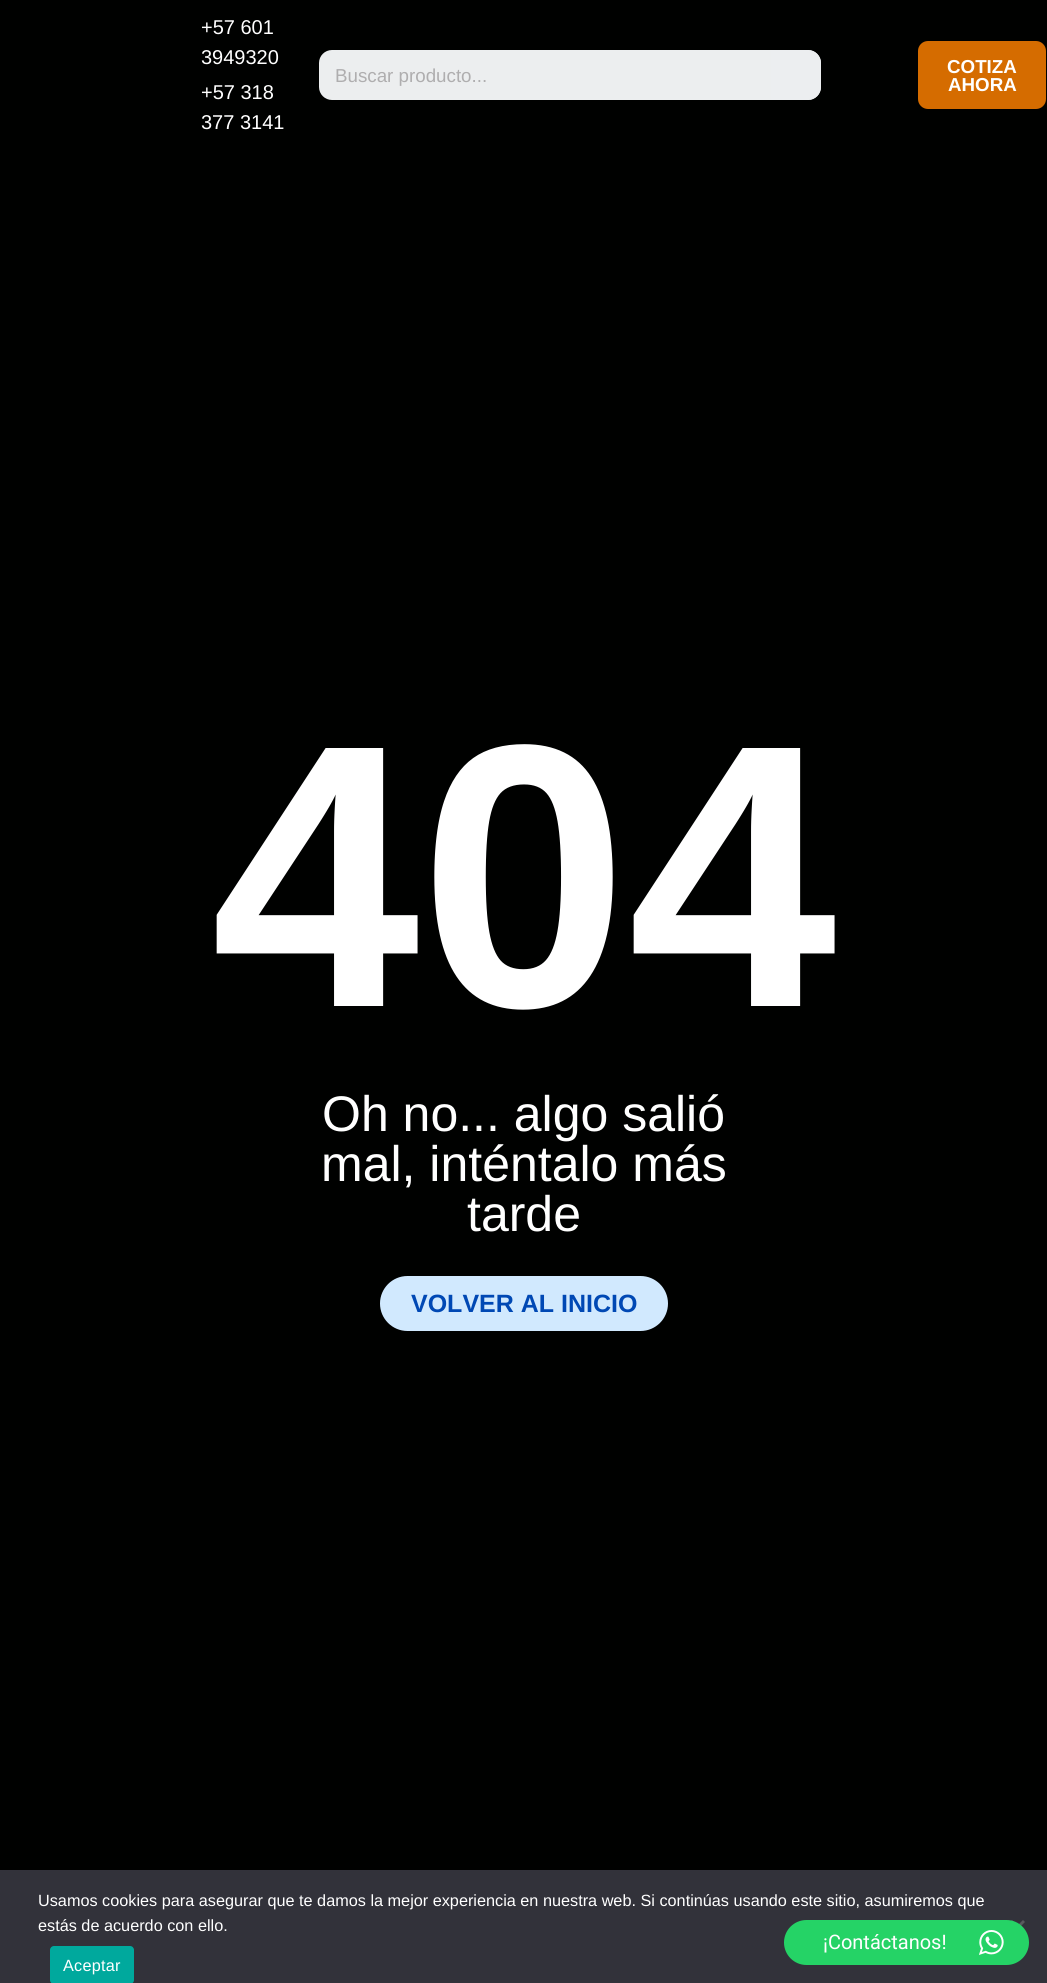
import math
import cairo

surface = cairo.ImageSurface(cairo.FORMAT_RGB24, 1047, 1983)
ctx = cairo.Context(surface)
options = cairo.FontOptions()
options.set_hint_metrics(cairo.HINT_METRICS_OFF)
options.set_hint_style(cairo.HINT_STYLE_NONE)
ctx.set_font_options(options)
ctx.set_miter_limit(4)


def set_color(code):
    ctx.set_source_rgb(*(v / 255 for v in bytes.fromhex(code[-6:])))


def draw_text(x, y, s, family, size, color, bold=False, italic=False):
    ctx.select_font_face(family, cairo.FONT_SLANT_ITALIC if italic else cairo.FONT_SLANT_NORMAL, cairo.FONT_WEIGHT_BOLD if bold else cairo.FONT_WEIGHT_NORMAL)
    ctx.set_font_size(size)
    set_color(color)
    ctx.move_to(x, y)
    ctx.show_text(s)


def draw_spaced(x, y, s, letter, word):
    ctx.move_to(x, y)
    for ch in s:
        ctx.show_text(ch)
        ctx.rel_move_to(letter + word * (ch == ' '), 0)


def fill_rect(x, y, w, h, color):
    set_color(color)
    ctx.rectangle(x, y, w, h)
    ctx.fill()


def rounded_rect(x, y, w, h, r):
    ctx.new_sub_path()
    for i, (u, v) in enumerate([(x + w - r, y + h - r), (x + r, y + h - r), (x + r, y + r), (x + w - r, y + r)]):
        ctx.arc(u, v, r, i * math.pi / 2, (i + 1) * math.pi / 2)
    ctx.close_path()


def draw_image(path, x, y, w, h):
    ctx.save()
    ctx.set_source_surface(cairo.ImageSurface.create_from_png(path), x, y)
    ctx.rectangle(x, y, w, h)
    ctx.fill()
    ctx.restore()


set_color("#000100")
ctx.paint()
draw_text(201, 34, "+57 601", "Liberation Sans", 20, "#ffffff")
draw_text(201, 64, "3949320", "Liberation Sans", 20, "#ffffff")
draw_text(201, 99, "+57 318", "Liberation Sans", 20, "#ffffff")
draw_text(201, 129, "377 3141", "Liberation Sans", 20, "#ffffff")
set_color("#eceeef")
rounded_rect(319, 50, 502, 50, 13)
ctx.fill()
draw_text(335, 82, "Buscar producto...", "Liberation Sans", 18.75, "#afaeaf")
set_color("#eceef0")
ctx.new_path()
ctx.move_to(771, 50)
ctx.line_to(808, 50)
ctx.curve_to(815, 50, 821, 56, 821, 63)
ctx.line_to(821, 87)
ctx.curve_to(821, 94, 815, 100, 808, 100)
ctx.line_to(771, 100)
ctx.close_path()
ctx.fill()
set_color("#d56c00")
rounded_rect(918, 41, 128, 68, 10)
ctx.fill()
draw_text(947, 73, "COTIZA", "Liberation Sans", 18.75, "#ffffff", bold=True)
draw_text(948, 91, "AHORA", "Liberation Sans", 18.75, "#ffffff", bold=True)
draw_text(211, 1006, "404", "Liberation Sans", 375, "#ffffff", bold=True)
draw_text(322, 1131, "Oh no... algo salió", "Liberation Sans", 50, "#ffffff")
draw_text(321, 1181, "mal, inténtalo más", "Liberation Sans", 50, "#ffffff")
draw_text(467, 1231, "tarde", "Liberation Sans", 50, "#ffffff")
set_color("#d1e9fe")
rounded_rect(380, 1276, 288, 55, 27.5)
ctx.fill()
draw_text(411, 1312, "VOLVER AL INICIO", "Liberation Sans", 25, "#0048b4", bold=True)
fill_rect(0, 1870, 1047, 113, "#32323a")
draw_text(38, 1906, "Usamos cookies para asegurar que te damos la mejor experiencia en nuestra web. Si continúas usando este sitio, asumiremos que", "Liberation Sans", 16.25, "#ffffff")
draw_text(38, 1931, "estás de acuerdo con ello.", "Liberation Sans", 16.25, "#ffffff")
set_color("#59595d")
ctx.new_path()
ctx.move_to(1023, 1920)
ctx.line_to(1025, 1922)
ctx.line_to(1012, 1935)
ctx.line_to(1010, 1933)
ctx.close_path()
ctx.fill()
ctx.new_path()
ctx.move_to(1010, 1922)
ctx.line_to(1012, 1920)
ctx.line_to(1025, 1933)
ctx.line_to(1023, 1935)
ctx.close_path()
ctx.fill()
set_color("#00a99d")
rounded_rect(50, 1946, 84, 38, 4)
ctx.fill()
set_color("#ffffff")
draw_spaced(63, 1971, "Aceptar", 0.25, 0)
set_color("#25d366")
rounded_rect(784, 1920, 245, 45, 22.5)
ctx.fill()
draw_text(823, 1949, "¡Contáctanos!", "Roboto", 20, "#ffffff")
draw_image("assets/img1.png", 979, 1930, 25, 25)
surface.write_to_png("output.png")
